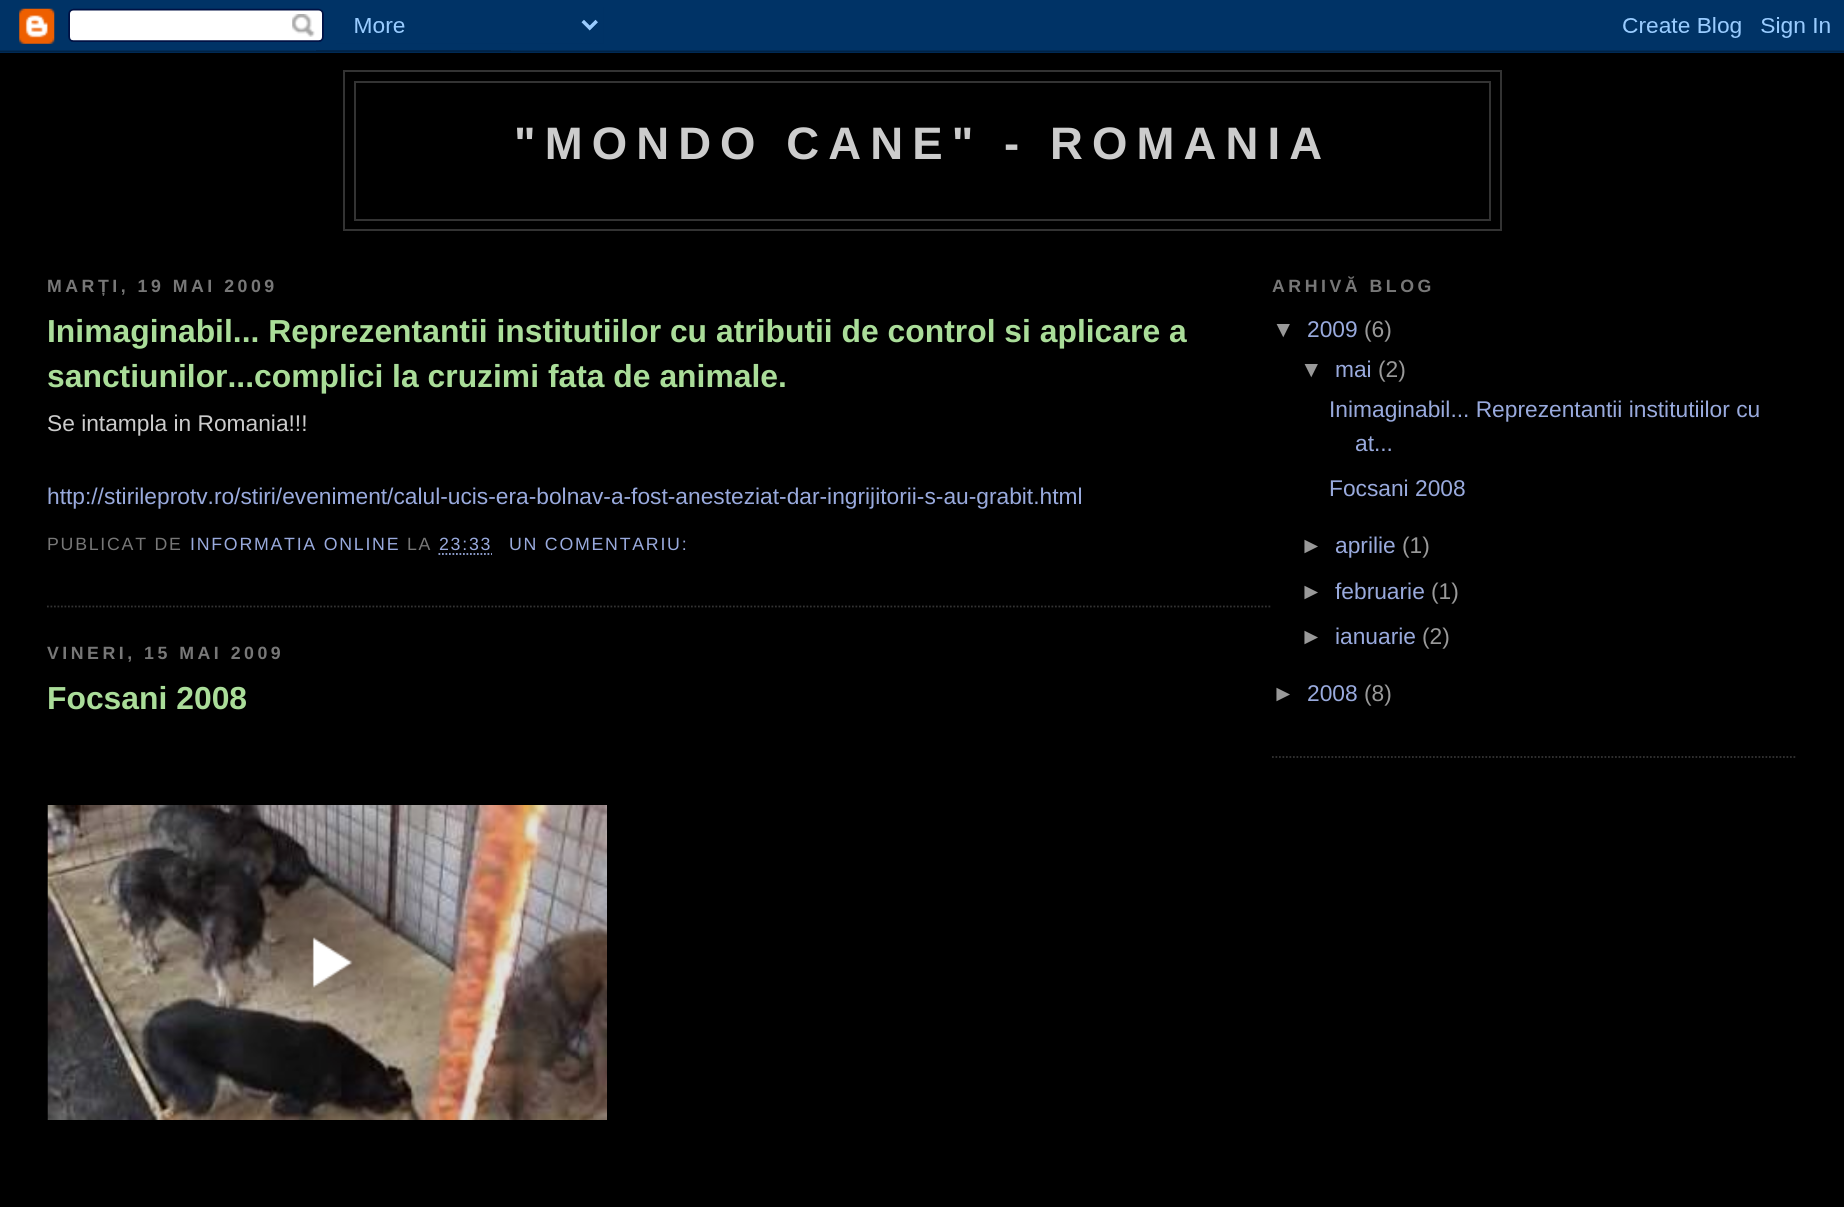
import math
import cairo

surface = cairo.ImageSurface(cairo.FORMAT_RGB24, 1844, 1207)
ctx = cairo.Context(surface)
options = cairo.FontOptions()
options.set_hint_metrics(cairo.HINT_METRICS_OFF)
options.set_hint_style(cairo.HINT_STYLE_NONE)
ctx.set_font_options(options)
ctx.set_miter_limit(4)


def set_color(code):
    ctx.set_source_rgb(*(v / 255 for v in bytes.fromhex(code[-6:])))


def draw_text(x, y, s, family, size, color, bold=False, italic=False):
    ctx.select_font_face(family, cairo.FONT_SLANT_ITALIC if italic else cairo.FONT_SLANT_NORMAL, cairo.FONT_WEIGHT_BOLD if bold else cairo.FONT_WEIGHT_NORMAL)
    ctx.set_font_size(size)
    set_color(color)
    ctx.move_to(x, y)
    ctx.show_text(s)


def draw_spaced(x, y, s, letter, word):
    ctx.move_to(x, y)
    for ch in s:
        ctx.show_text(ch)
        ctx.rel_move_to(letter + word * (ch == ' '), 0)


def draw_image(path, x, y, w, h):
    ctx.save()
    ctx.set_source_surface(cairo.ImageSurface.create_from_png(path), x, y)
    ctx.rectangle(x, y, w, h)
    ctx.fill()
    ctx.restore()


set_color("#000000")
ctx.paint()
draw_image("assets/img1.png", 0, 0, 1844, 53)
ctx.rectangle(344, 71, 1157, 159)
set_color("#333333")
ctx.stroke()
ctx.rectangle(355, 82, 1135, 138)
ctx.stroke()
ctx.select_font_face("Liberation Sans", cairo.FONT_SLANT_NORMAL, cairo.FONT_WEIGHT_BOLD)
ctx.set_font_size(45.5)
set_color("#cccccc")
draw_spaced(514, 159, "\"MONDO CANE\" - ROMANIA", 9.1, 0)
ctx.set_font_size(17.75)
set_color("#777777")
draw_spaced(47, 292, "MARȚI, 19 MAI 2009", 3.5, 0)
ctx.new_path()
ctx.move_to(47, 606.5)
ctx.line_to(1272, 606.5)
set_color("#333333")
ctx.set_line_width(1.8)
ctx.set_dash([1.75, 1.75])
ctx.stroke()
draw_text(47, 342, "Inimaginabil... Reprezentantii institutiilor cu atributii de control si aplicare a", "Liberation Sans", 31.85, "#aadd99", bold=True)
draw_text(47, 387, "sanctiunilor...complici la cruzimi fata de animale.", "Liberation Sans", 31.85, "#aadd99", bold=True)
draw_text(47, 431, "Se intampla in Romania!!!", "Liberation Sans", 22.75, "#cccccc")
draw_text(47, 504, "http://stirileprotv.ro/stiri/eveniment/calul-ucis-era-bolnav-a-fost-anesteziat-dar-ingrijitorii-s-au-grabit.html", "Liberation Sans", 22.75, "#99aadd")
ctx.set_font_size(17.75)
set_color("#777777")
draw_spaced(47, 550, "PUBLICAT DE", 1.75, 0)
set_color("#99aadd")
draw_spaced(190, 550, "INFORMATIA ONLINE", 1.75, 0)
set_color("#777777")
draw_spaced(407, 550, "LA", 1.75, 0)
set_color("#99aadd")
draw_spaced(439, 550, "23:33", 1.75, 0)
ctx.new_path()
ctx.move_to(438.5, 554)
ctx.line_to(492, 554)
ctx.stroke()
draw_spaced(509, 550, "UN COMENTARIU:", 1.75, 0)
ctx.select_font_face("Liberation Sans", cairo.FONT_SLANT_NORMAL, cairo.FONT_WEIGHT_BOLD)
set_color("#777777")
draw_spaced(47, 659, "VINERI, 15 MAI 2009", 3.5, 0)
draw_text(47, 709, "Focsani 2008", "Liberation Sans", 31.85, "#aadd99", bold=True)
draw_image("assets/img2.png", 47, 805, 560, 315)
ctx.new_path()
ctx.move_to(1272, 757)
ctx.line_to(1797, 757)
set_color("#333333")
ctx.stroke()
ctx.set_font_size(17.75)
set_color("#777777")
draw_spaced(1272, 292, "ARHIVĂ BLOG", 3.5, 0)
draw_text(1272, 337, "▼", "Liberation Sans", 22.75, "#999999")
draw_text(1307, 337, "2009", "Liberation Sans", 22.75, "#99aadd")
draw_text(1364, 337, "(6)", "Liberation Sans", 22.75, "#999999")
draw_text(1300, 377, "▼", "Liberation Sans", 22.75, "#999999")
draw_text(1335, 377, "mai", "Liberation Sans", 22.75, "#99aadd")
draw_text(1378, 377, "(2)", "Liberation Sans", 22.75, "#999999")
draw_text(1329, 417, "Inimaginabil... Reprezentantii institutiilor cu", "Liberation Sans", 22.75, "#99aadd")
draw_text(1355, 451, "at...", "Liberation Sans", 22.75, "#99aadd")
draw_text(1329, 496, "Focsani 2008", "Liberation Sans", 22.75, "#99aadd")
draw_text(1300, 553, "►", "Liberation Sans", 22.75, "#999999")
draw_text(1335, 553, "aprilie", "Liberation Sans", 22.75, "#99aadd")
draw_text(1402, 553, "(1)", "Liberation Sans", 22.75, "#999999")
draw_text(1300, 599, "►", "Liberation Sans", 22.75, "#999999")
draw_text(1335, 599, "februarie", "Liberation Sans", 22.75, "#99aadd")
draw_text(1431, 599, "(1)", "Liberation Sans", 22.75, "#999999")
draw_text(1300, 644, "►", "Liberation Sans", 22.75, "#999999")
draw_text(1335, 644, "ianuarie", "Liberation Sans", 22.75, "#99aadd")
draw_text(1422, 644, "(2)", "Liberation Sans", 22.75, "#999999")
draw_text(1272, 701, "►", "Liberation Sans", 22.75, "#999999")
draw_text(1307, 701, "2008", "Liberation Sans", 22.75, "#99aadd")
draw_text(1364, 701, "(8)", "Liberation Sans", 22.75, "#999999")
surface.write_to_png("output.png")
